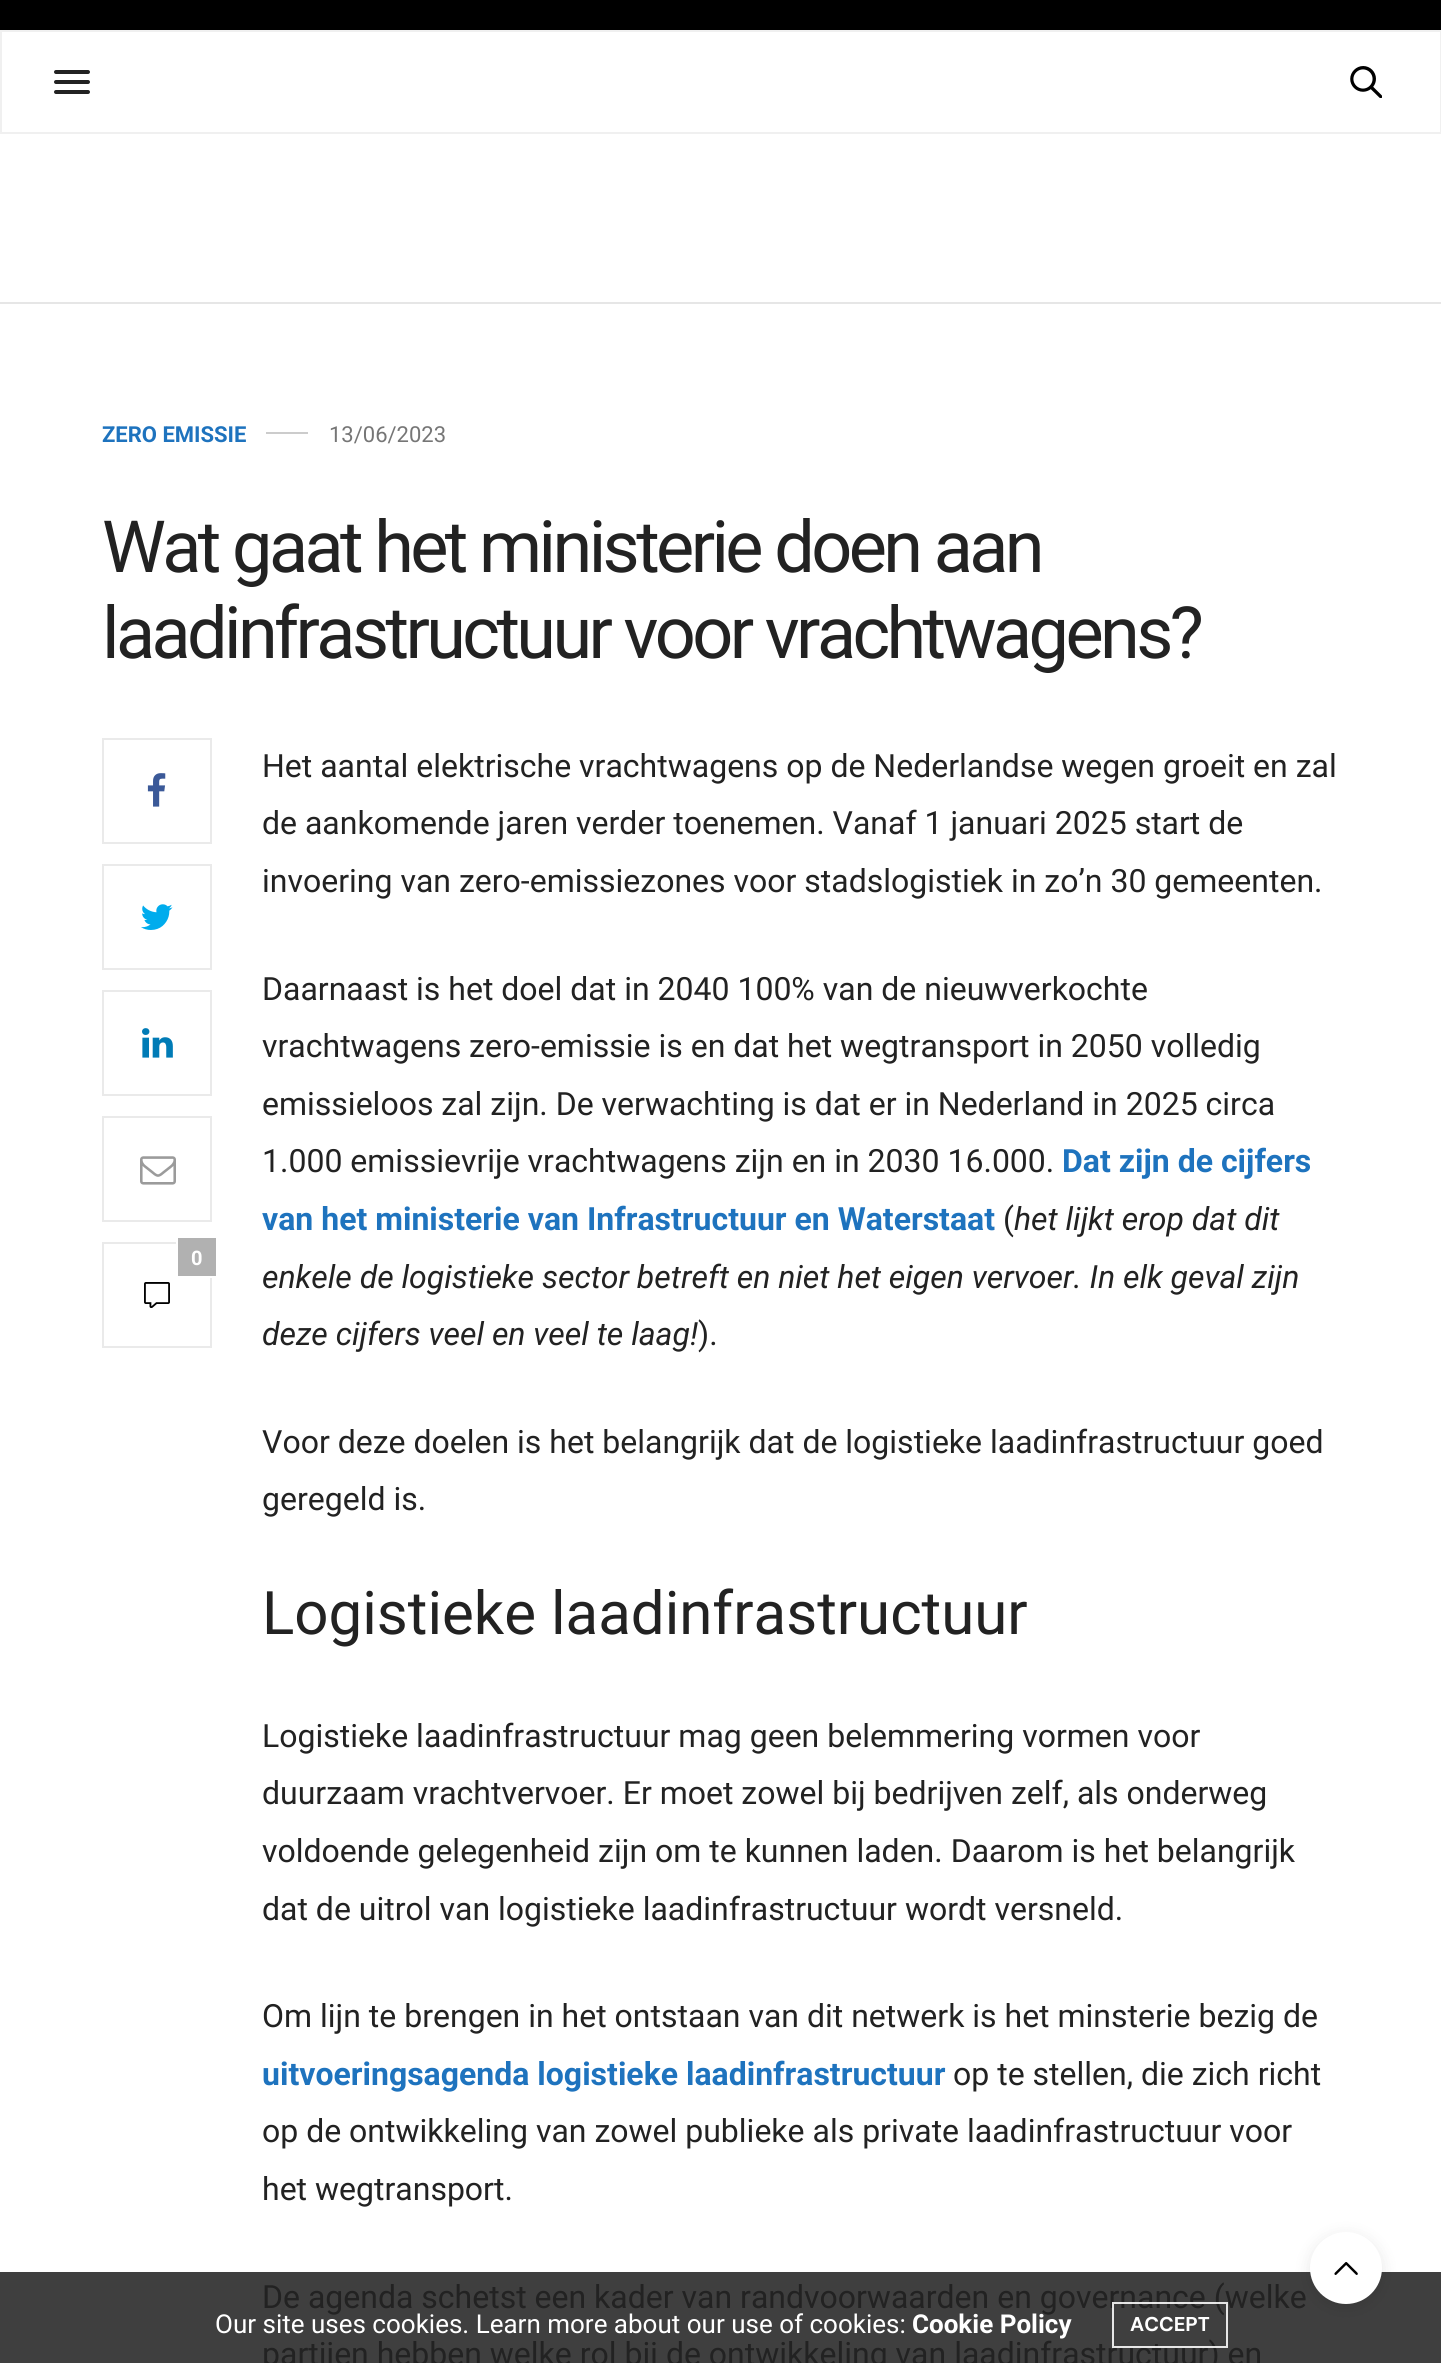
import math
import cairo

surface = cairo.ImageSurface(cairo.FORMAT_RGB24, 1441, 2363)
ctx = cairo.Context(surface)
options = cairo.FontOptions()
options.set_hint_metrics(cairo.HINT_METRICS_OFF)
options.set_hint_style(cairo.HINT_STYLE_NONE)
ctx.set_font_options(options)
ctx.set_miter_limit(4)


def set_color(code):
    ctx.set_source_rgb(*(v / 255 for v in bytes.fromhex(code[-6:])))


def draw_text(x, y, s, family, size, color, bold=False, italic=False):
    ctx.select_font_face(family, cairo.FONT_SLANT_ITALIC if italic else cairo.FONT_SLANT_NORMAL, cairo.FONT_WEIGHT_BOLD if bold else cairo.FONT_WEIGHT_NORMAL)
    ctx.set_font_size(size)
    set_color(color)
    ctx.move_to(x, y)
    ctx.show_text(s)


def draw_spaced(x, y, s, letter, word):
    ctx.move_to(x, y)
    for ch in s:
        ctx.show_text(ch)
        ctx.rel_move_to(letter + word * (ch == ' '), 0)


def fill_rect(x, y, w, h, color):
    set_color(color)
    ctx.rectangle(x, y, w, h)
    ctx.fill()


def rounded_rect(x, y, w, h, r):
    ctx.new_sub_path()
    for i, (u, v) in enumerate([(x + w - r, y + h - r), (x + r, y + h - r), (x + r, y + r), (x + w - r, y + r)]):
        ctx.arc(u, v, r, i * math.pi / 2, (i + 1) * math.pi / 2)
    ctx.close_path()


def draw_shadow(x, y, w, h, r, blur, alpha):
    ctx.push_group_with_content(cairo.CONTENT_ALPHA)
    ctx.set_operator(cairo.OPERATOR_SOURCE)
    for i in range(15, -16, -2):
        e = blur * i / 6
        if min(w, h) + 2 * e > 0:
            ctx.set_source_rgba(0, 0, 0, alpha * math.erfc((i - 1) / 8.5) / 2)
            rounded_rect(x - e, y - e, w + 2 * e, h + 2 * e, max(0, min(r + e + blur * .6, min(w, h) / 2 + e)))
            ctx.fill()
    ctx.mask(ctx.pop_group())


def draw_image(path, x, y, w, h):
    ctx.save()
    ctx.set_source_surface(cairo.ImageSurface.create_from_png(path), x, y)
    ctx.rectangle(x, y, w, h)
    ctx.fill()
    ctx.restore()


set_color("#ffffff")
ctx.paint()
fill_rect(0, 2272, 1441, 91, "#3f3f3f")
fill_rect(0, 0, 1441, 30, "#000000")
ctx.rectangle(1, 31, 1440, 102)
set_color("#f0f0f0")
ctx.stroke()
set_color("#222222")
rounded_rect(54, 70, 36, 4, 2)
ctx.fill()
rounded_rect(54, 80, 36, 4, 2)
ctx.fill()
rounded_rect(54, 90, 36, 4, 2)
ctx.fill()
draw_image("assets/img1.png", 1350, 66, 32, 32)
fill_rect(0, 302, 1441, 2, "#e6e6e6")
draw_text(102, 442, "ZERO EMISSIE", "Roboto", 22, "#1e73be", bold=True)
fill_rect(266, 432, 42, 2, "#cccccc")
draw_text(329, 442, "13/06/2023", "Roboto", 22, "#767676")
ctx.set_font_size(72)
set_color("#222222")
draw_spaced(102, 572, "Wat gaat het ministerie doen aan", -3.6, 0)
draw_spaced(102, 658, "laadinfrastructuur voor vrachtwagens?", -3.6, 0)
ctx.rectangle(103, 739, 108, 104)
set_color("#eaeaea")
ctx.stroke()
draw_image("assets/img2.png", 147, 773, 19, 34)
ctx.rectangle(103, 865, 108, 104)
ctx.stroke()
draw_image("assets/img3.png", 141, 904, 32, 26)
ctx.rectangle(103, 991, 108, 104)
ctx.stroke()
draw_image("assets/img4.png", 142, 1028, 31, 30)
ctx.rectangle(103, 1117, 108, 104)
ctx.stroke()
draw_image("assets/img5.png", 140, 1156, 36, 29)
ctx.rectangle(103, 1243, 108, 104)
ctx.stroke()
fill_rect(178, 1238, 38, 38, "#b1b1b1")
fill_rect(210, 1276, 6, 2, "#ffffff")
fill_rect(176, 1238, 2, 6, "#ffffff")
draw_text(191, 1265, "0", "Roboto", 20, "#ffffff", bold=True)
draw_image("assets/img6.png", 144, 1282, 26, 26)
draw_text(262, 777, "Het aantal elektrische vrachtwagens op de Nederlandse wegen groeit en zal", "Roboto", 32, "#222222")
draw_text(262, 834, "de aankomende jaren verder toenemen. Vanaf 1 januari 2025 start de", "Roboto", 32, "#222222")
draw_text(262, 892, "invoering van zero-emissiezones voor stadslogistiek in zo’n 30 gemeenten.", "Roboto", 32, "#222222")
draw_text(262, 1000, "Daarnaast is het doel dat in 2040 100% van de nieuwverkochte", "Roboto", 32, "#222222")
draw_text(262, 1057, "vrachtwagens zero-emissie is en dat het wegtransport in 2050 volledig", "Roboto", 32, "#222222")
draw_text(262, 1115, "emissieloos zal zijn. De verwachting is dat er in Nederland in 2025 circa", "Roboto", 32, "#222222")
draw_text(262, 1172, "1.000 emissievrije vrachtwagens zijn en in 2030 16.000.", "Roboto", 32, "#222222")
draw_text(1062, 1172, "Dat zijn de cijfers", "Roboto", 32, "#1e73be", bold=True)
draw_text(262, 1230, "van het ministerie van Infrastructuur en Waterstaat", "Roboto", 32, "#1e73be", bold=True)
draw_text(1003, 1230, "(", "Roboto", 32, "#222222")
draw_text(1014, 1230, "het lijkt erop dat dit", "Roboto", 32, "#222222", italic=True)
draw_text(262, 1288, "enkele de logistieke sector betreft en niet het eigen vervoer. In elk geval zijn", "Roboto", 32, "#222222", italic=True)
draw_text(262, 1345, "deze cijfers veel en veel te laag!", "Roboto", 32, "#222222", italic=True)
draw_text(698, 1345, ").", "Roboto", 32, "#222222")
draw_text(262, 1453, "Voor deze doelen is het belangrijk dat de logistieke laadinfrastructuur goed", "Roboto", 32, "#222222")
draw_text(262, 1510, "geregeld is.", "Roboto", 32, "#222222")
draw_text(262, 1634, "Logistieke laadinfrastructuur", "Roboto", 60, "#222222")
draw_text(262, 1747, "Logistieke laadinfrastructuur mag geen belemmering vormen voor", "Roboto", 32, "#222222")
draw_text(262, 1804, "duurzaam vrachtvervoer. Er moet zowel bij bedrijven zelf, als onderweg", "Roboto", 32, "#222222")
draw_text(262, 1862, "voldoende gelegenheid zijn om te kunnen laden. Daarom is het belangrijk", "Roboto", 32, "#222222")
draw_text(262, 1920, "dat de uitrol van logistieke laadinfrastructuur wordt versneld.", "Roboto", 32, "#222222")
draw_text(262, 2027, "Om lijn te brengen in het ontstaan van dit netwerk is het minsterie bezig de", "Roboto", 32, "#222222")
draw_text(262, 2085, "uitvoeringsagenda logistieke laadinfrastructuur", "Roboto", 32, "#1e73be", bold=True)
draw_text(953, 2085, "op te stellen, die zich richt", "Roboto", 32, "#222222")
draw_text(262, 2142, "op de ontwikkeling van zowel publieke als private laadinfrastructuur voor", "Roboto", 32, "#222222")
draw_text(262, 2200, "het wegtransport.", "Roboto", 32, "#222222")
draw_text(262, 2308, "De agenda schetst een kader van randvoorwaarden en governance (welke", "Roboto", 32, "#222222")
draw_text(262, 2365, "partijen hebben welke rol bij de ontwikkeling van laadinfrastructuur) en", "Roboto", 32, "#222222")
set_color("#000000")
draw_shadow(1310, 2236, 72, 72, 36, 8, 0.1)
set_color("#ffffff")
ctx.arc(1346, 2268, 36, 0, 2 * math.pi)
ctx.fill()
draw_image("assets/img7.png", 1334, 2262, 24, 13)
draw_text(215, 2333, "Our site uses cookies. Learn more about our use of cookies:", "Roboto", 26, "#ffffff")
draw_text(912, 2333, "Cookie Policy", "Roboto", 26, "#ffffff", bold=True)
ctx.rectangle(1113, 2303, 114, 44)
ctx.set_source_rgba(1, 1, 1, 0.87)
ctx.stroke()
draw_text(1130, 2331, "ACCEPT", "DM Sans", 20, "#ffffff", bold=True)
surface.write_to_png("output.png")
